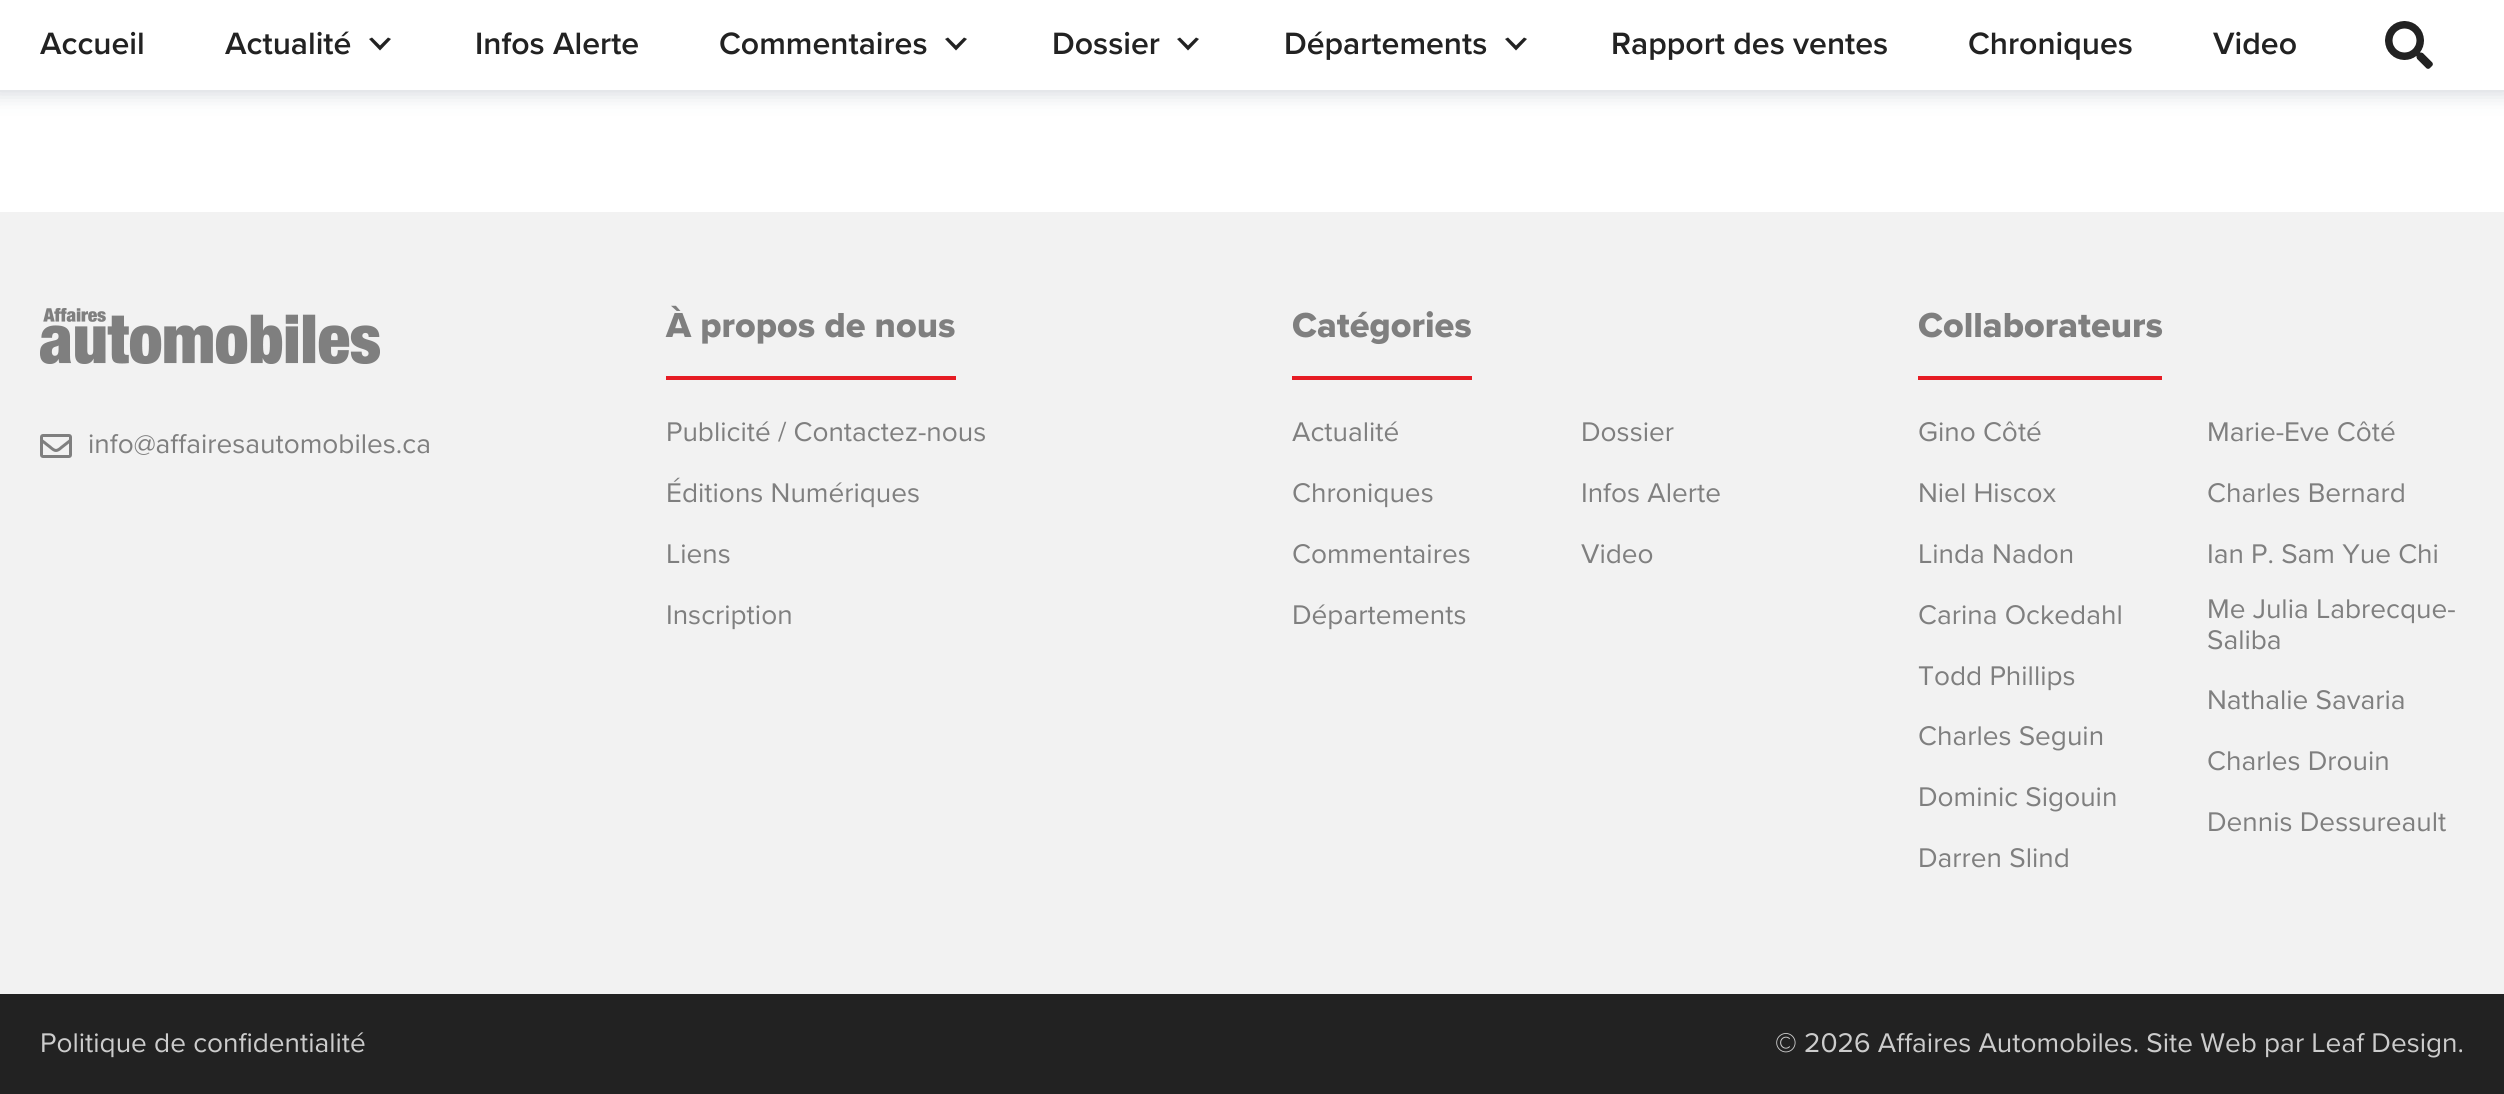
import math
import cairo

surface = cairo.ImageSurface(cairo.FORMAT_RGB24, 2504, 1094)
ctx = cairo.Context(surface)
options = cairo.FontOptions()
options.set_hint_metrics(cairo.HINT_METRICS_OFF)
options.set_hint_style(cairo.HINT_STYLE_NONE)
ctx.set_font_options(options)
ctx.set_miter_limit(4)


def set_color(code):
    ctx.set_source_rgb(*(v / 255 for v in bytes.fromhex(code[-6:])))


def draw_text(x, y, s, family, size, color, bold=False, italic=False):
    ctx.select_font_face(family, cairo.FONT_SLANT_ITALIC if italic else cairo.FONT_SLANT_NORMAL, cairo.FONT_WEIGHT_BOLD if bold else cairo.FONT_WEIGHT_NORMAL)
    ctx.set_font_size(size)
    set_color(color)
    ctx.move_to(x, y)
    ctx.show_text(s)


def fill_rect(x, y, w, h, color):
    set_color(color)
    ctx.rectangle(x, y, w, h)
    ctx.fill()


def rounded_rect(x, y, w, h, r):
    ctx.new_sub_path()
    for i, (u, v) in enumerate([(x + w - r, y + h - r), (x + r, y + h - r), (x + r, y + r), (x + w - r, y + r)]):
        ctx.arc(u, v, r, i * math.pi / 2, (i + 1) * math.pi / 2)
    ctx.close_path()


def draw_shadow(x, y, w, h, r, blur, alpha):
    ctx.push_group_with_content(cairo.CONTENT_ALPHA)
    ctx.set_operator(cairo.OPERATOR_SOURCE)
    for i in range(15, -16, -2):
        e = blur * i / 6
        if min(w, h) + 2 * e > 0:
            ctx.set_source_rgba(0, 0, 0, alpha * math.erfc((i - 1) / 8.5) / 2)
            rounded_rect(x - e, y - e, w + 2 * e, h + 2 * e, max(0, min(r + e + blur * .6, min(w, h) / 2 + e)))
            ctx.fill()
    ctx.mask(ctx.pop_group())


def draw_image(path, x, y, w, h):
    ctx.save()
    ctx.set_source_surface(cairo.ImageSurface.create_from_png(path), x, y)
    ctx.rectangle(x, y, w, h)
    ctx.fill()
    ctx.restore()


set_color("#ffffff")
ctx.paint()
set_color("#2f415b")
draw_shadow(-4, -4, 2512, 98, 0, 10, 0.2)
fill_rect(0, 0, 2504, 90, "#ffffff")
draw_text(40, 54, "Accueil", "Proxima Nova SemiBold", 32, "#222222")
draw_text(225, 54, "Actualité", "Proxima Nova SemiBold", 32, "#222222")
ctx.new_path()
ctx.move_to(372, 37.5)
ctx.line_to(380, 45.5)
ctx.line_to(388, 37.5)
ctx.line_to(391, 39)
ctx.line_to(380, 50.5)
ctx.line_to(369, 39)
ctx.close_path()
ctx.fill()
draw_text(475, 54, "Infos Alerte", "Proxima Nova SemiBold", 32, "#222222")
draw_text(719, 54, "Commentaires", "Proxima Nova SemiBold", 32, "#222222")
ctx.new_path()
ctx.move_to(948, 37.5)
ctx.line_to(956, 45.5)
ctx.line_to(964, 37.5)
ctx.line_to(967, 39)
ctx.line_to(956, 50.5)
ctx.line_to(945, 39)
ctx.close_path()
ctx.fill()
draw_text(1052, 54, "Dossier", "Proxima Nova SemiBold", 32, "#222222")
ctx.new_path()
ctx.move_to(1180, 37.5)
ctx.line_to(1188, 45.5)
ctx.line_to(1196, 37.5)
ctx.line_to(1199, 39)
ctx.line_to(1188, 50.5)
ctx.line_to(1177, 39)
ctx.close_path()
ctx.fill()
draw_text(1284, 54, "Départements", "Proxima Nova SemiBold", 32, "#222222")
ctx.new_path()
ctx.move_to(1508, 37.5)
ctx.line_to(1516, 45.5)
ctx.line_to(1524, 37.5)
ctx.line_to(1527, 39)
ctx.line_to(1516, 50.5)
ctx.line_to(1505, 39)
ctx.close_path()
ctx.fill()
draw_text(1611, 54, "Rapport des ventes", "Proxima Nova SemiBold", 32, "#222222")
draw_text(1968, 54, "Chroniques", "Proxima Nova SemiBold", 32, "#222222")
draw_text(2213, 54, "Video", "Proxima Nova SemiBold", 32, "#222222")
draw_image("assets/img1.png", 2385, 21, 48, 48)
fill_rect(0, 212, 2504, 782, "#f2f2f2")
draw_image("assets/img2.png", 40, 308, 340, 56)
draw_image("assets/img3.png", 40, 434, 32, 24)
draw_text(88, 453, "info@affairesautomobiles.ca", "Proxima Nova", 28, "#7f7f7f")
fill_rect(666, 376, 290, 4, "#e61c24")
draw_text(666, 337, "À propos de nous", "Proxima Nova ExtraBold", 36, "#7f7f7f")
draw_text(666, 441, "Publicité / Contactez-nous", "Proxima Nova", 28, "#7f7f7f")
draw_text(666, 502, "Éditions Numériques", "Proxima Nova", 28, "#7f7f7f")
draw_text(666, 563, "Liens", "Proxima Nova", 28, "#7f7f7f")
draw_text(666, 624, "Inscription", "Proxima Nova", 28, "#7f7f7f")
fill_rect(1292, 376, 180, 4, "#e61c24")
draw_text(1292, 337, "Catégories", "Proxima Nova ExtraBold", 36, "#7f7f7f")
draw_text(1292, 441, "Actualité", "Proxima Nova", 28, "#7f7f7f")
draw_text(1581, 441, "Dossier", "Proxima Nova", 28, "#7f7f7f")
draw_text(1292, 502, "Chroniques", "Proxima Nova", 28, "#7f7f7f")
draw_text(1581, 502, "Infos Alerte", "Proxima Nova", 28, "#7f7f7f")
draw_text(1292, 563, "Commentaires", "Proxima Nova", 28, "#7f7f7f")
draw_text(1581, 563, "Video", "Proxima Nova", 28, "#7f7f7f")
draw_text(1292, 624, "Départements", "Proxima Nova", 28, "#7f7f7f")
fill_rect(1918, 376, 244, 4, "#e61c24")
draw_text(1918, 337, "Collaborateurs", "Proxima Nova ExtraBold", 36, "#7f7f7f")
draw_text(1918, 441, "Gino Côté", "Proxima Nova", 28, "#7f7f7f")
draw_text(2207, 441, "Marie-Eve Côté", "Proxima Nova", 28, "#7f7f7f")
draw_text(1918, 502, "Niel Hiscox", "Proxima Nova", 28, "#7f7f7f")
draw_text(2207, 502, "Charles Bernard", "Proxima Nova", 28, "#7f7f7f")
draw_text(1918, 563, "Linda Nadon", "Proxima Nova", 28, "#7f7f7f")
draw_text(2207, 563, "Ian P. Sam Yue Chi", "Proxima Nova", 28, "#7f7f7f")
draw_text(1918, 624, "Carina Ockedahl", "Proxima Nova", 28, "#7f7f7f")
draw_text(2207, 618, "Me Julia Labrecque-", "Proxima Nova", 28, "#7f7f7f")
draw_text(2207, 649, "Saliba", "Proxima Nova", 28, "#7f7f7f")
draw_text(1918, 685, "Todd Phillips", "Proxima Nova", 28, "#7f7f7f")
draw_text(2207, 709, "Nathalie Savaria", "Proxima Nova", 28, "#7f7f7f")
draw_text(1918, 745, "Charles Seguin", "Proxima Nova", 28, "#7f7f7f")
draw_text(2207, 770, "Charles Drouin", "Proxima Nova", 28, "#7f7f7f")
draw_text(1918, 806, "Dominic Sigouin", "Proxima Nova", 28, "#7f7f7f")
draw_text(2207, 831, "Dennis Dessureault", "Proxima Nova", 28, "#7f7f7f")
draw_text(1918, 867, "Darren Slind", "Proxima Nova", 28, "#7f7f7f")
fill_rect(0, 994, 2504, 100, "#222222")
draw_text(40, 1052, "Politique de confidentialité", "Proxima Nova", 28, "#cccccc")
draw_text(1775, 1052, "© 2026 Affaires Automobiles. Site Web par Leaf Design.", "Proxima Nova", 28, "#cccccc")
surface.write_to_png("output.png")
